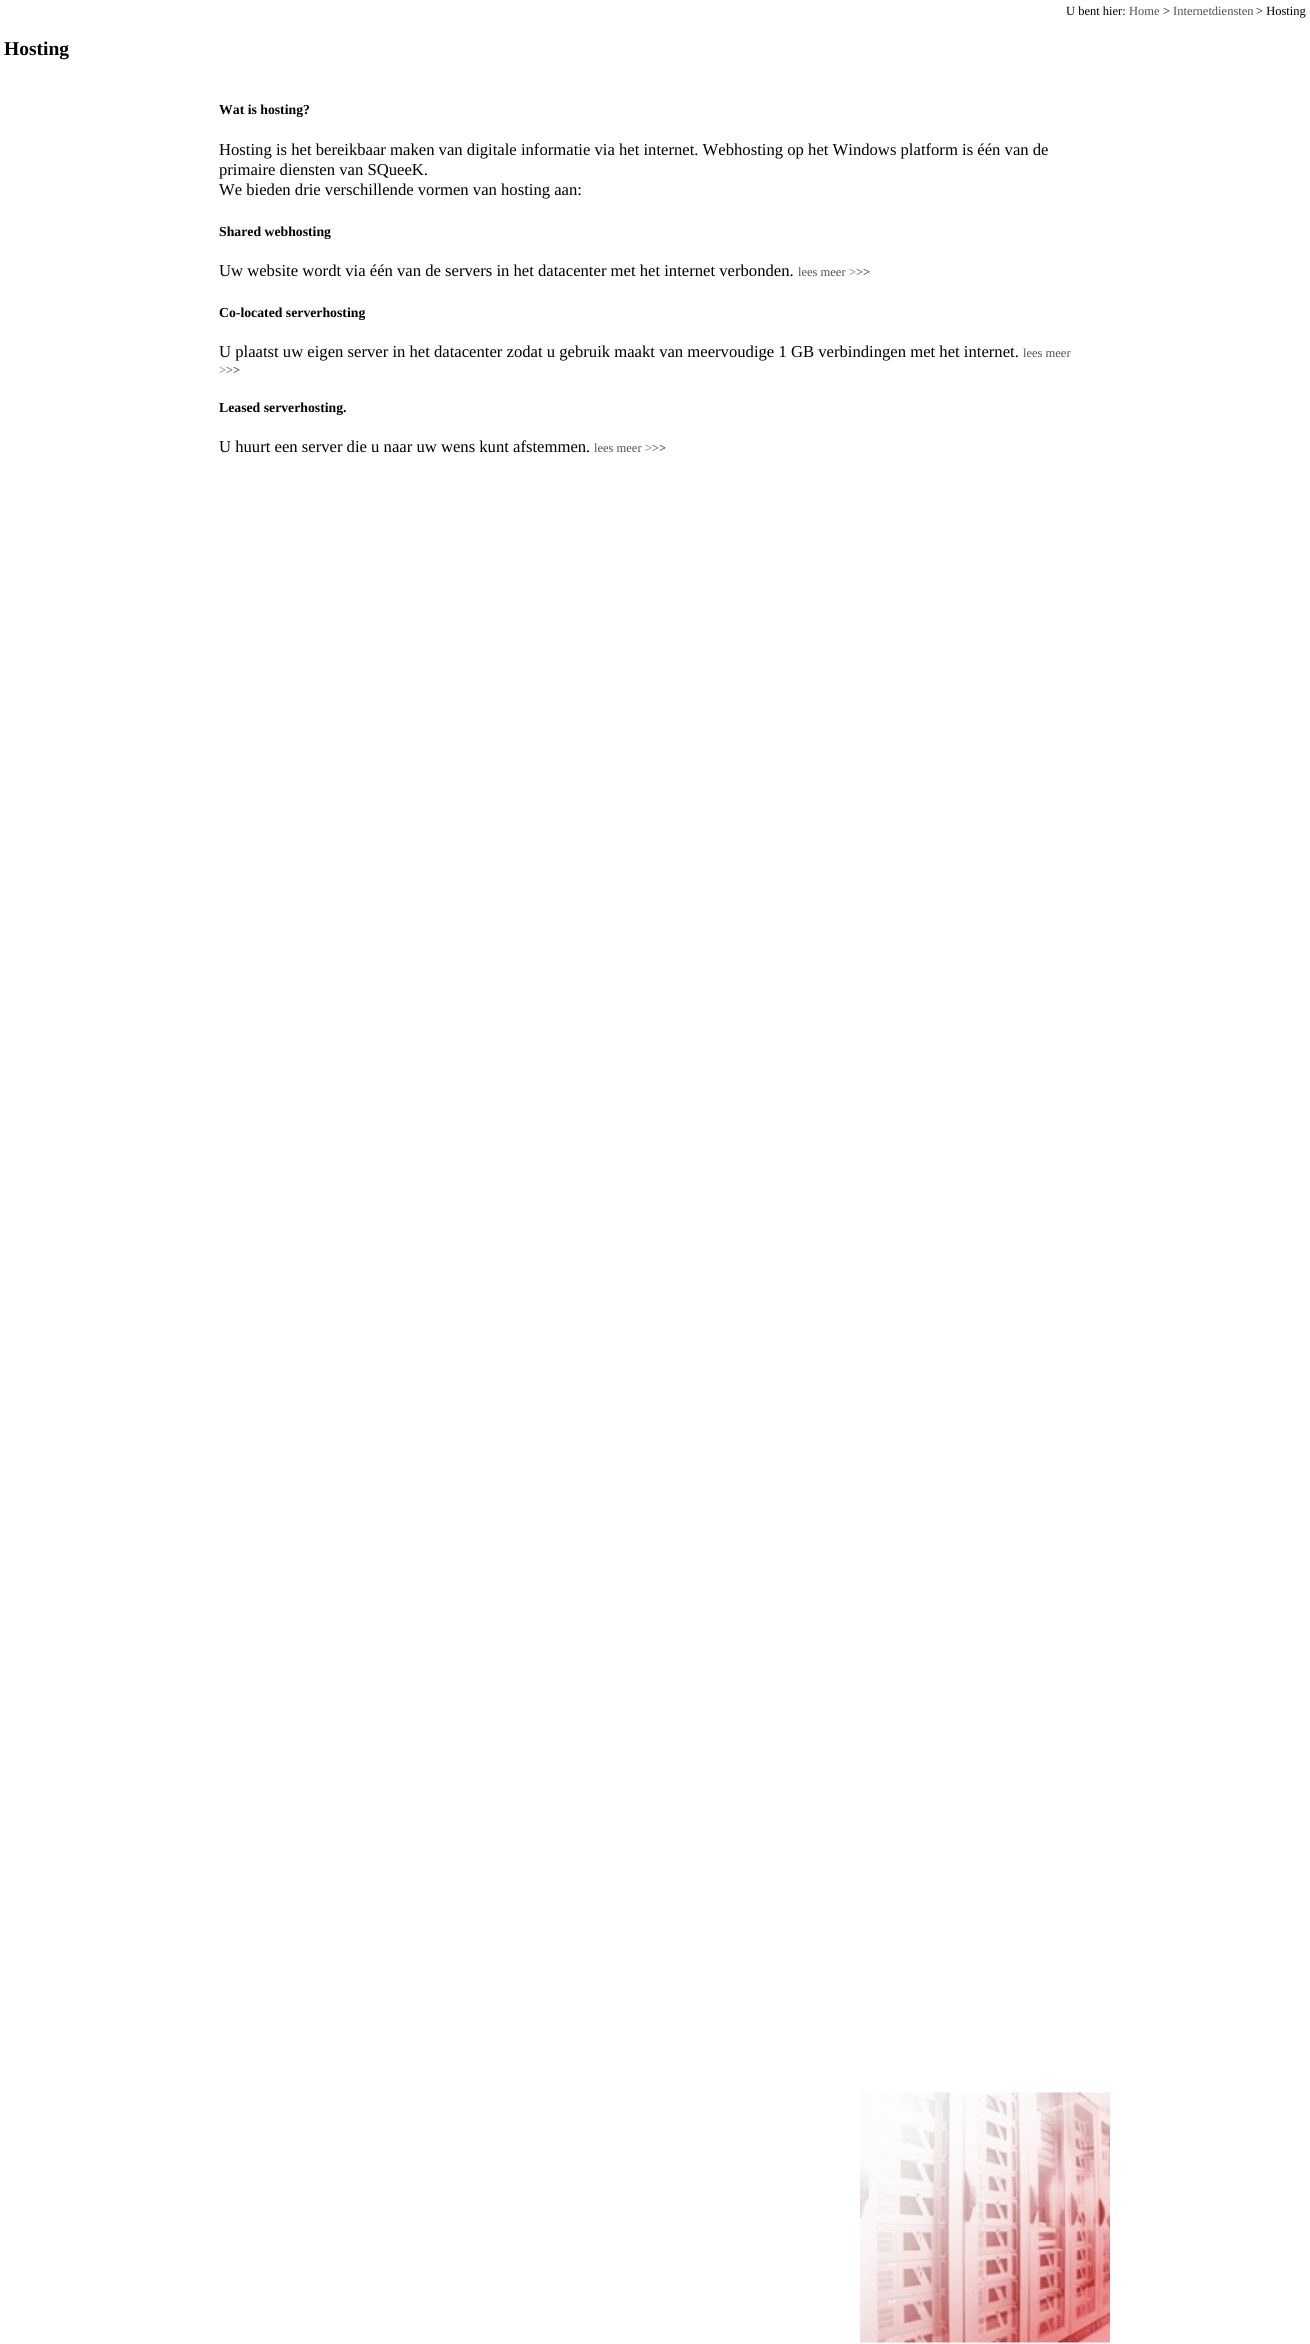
import math
import cairo

surface = cairo.ImageSurface(cairo.FORMAT_RGB24, 1310, 2344)
ctx = cairo.Context(surface)
options = cairo.FontOptions()
options.set_hint_metrics(cairo.HINT_METRICS_OFF)
options.set_hint_style(cairo.HINT_STYLE_NONE)
ctx.set_font_options(options)
ctx.set_miter_limit(4)


def set_color(code):
    ctx.set_source_rgb(*(v / 255 for v in bytes.fromhex(code[-6:])))


def draw_text(x, y, s, family, size, color, bold=False, italic=False):
    ctx.select_font_face(family, cairo.FONT_SLANT_ITALIC if italic else cairo.FONT_SLANT_NORMAL, cairo.FONT_WEIGHT_BOLD if bold else cairo.FONT_WEIGHT_NORMAL)
    ctx.set_font_size(size)
    set_color(color)
    ctx.move_to(x, y)
    ctx.show_text(s)


def draw_image(path, x, y, w, h):
    ctx.save()
    ctx.set_source_surface(cairo.ImageSurface.create_from_png(path), x, y)
    ctx.rectangle(x, y, w, h)
    ctx.fill()
    ctx.restore()


set_color("#ffffff")
ctx.paint()
draw_text(1066, 15, "U bent hier:", "Liberation Serif", 12.5, "#000000")
draw_text(1129, 15, "Home", "Liberation Serif", 12.5, "#505050")
draw_text(1163, 15, ">", "Liberation Serif", 12.5, "#000000")
draw_text(1173, 15, "Internetdiensten", "Liberation Serif", 12.5, "#505050")
draw_text(1256, 15, "> Hosting", "Liberation Serif", 12.5, "#000000")
draw_text(4, 55, "Hosting", "Liberation Serif", 19.5, "#000000", bold=True)
draw_image("assets/img1.png", 860, 2092, 250, 251)
draw_text(219, 114, "Wat is hosting?", "Liberation Serif", 13.75, "#000000", bold=True)
draw_text(219, 155, "Hosting is het bereikbaar maken van digitale informatie via het internet. Webhosting op het Windows platform is één van de", "Liberation Serif", 16.65, "#000000")
draw_text(219, 175, "primaire diensten van SQueeK.", "Liberation Serif", 16.65, "#000000")
draw_text(219, 195, "We bieden drie verschillende vormen van hosting aan:", "Liberation Serif", 16.65, "#000000")
draw_text(219, 236, "Shared webhosting", "Liberation Serif", 13.75, "#000000", bold=True)
draw_text(219, 276, "Uw website wordt via één van de servers in het datacenter met het internet verbonden.", "Liberation Serif", 16.65, "#000000")
draw_text(798, 276, "lees meer", "Liberation Serif", 12.5, "#505050")
draw_text(849, 276, ">", "Liberation Serif", 12.5, "#606060")
draw_text(856, 276, ">", "Liberation Serif", 12.5, "#303030")
draw_text(863, 276, ">", "Liberation Serif", 12.5, "#000000")
draw_text(219, 317, "Co-located serverhosting", "Liberation Serif", 13.75, "#000000", bold=True)
draw_text(219, 357, "U plaatst uw eigen server in het datacenter zodat u gebruik maakt van meervoudige 1 GB verbindingen met het internet.", "Liberation Serif", 16.65, "#000000")
draw_text(1023, 357, "lees meer", "Liberation Serif", 12.5, "#505050")
draw_text(219, 374, ">", "Liberation Serif", 12.5, "#606060")
draw_text(226, 374, ">", "Liberation Serif", 12.5, "#303030")
draw_text(233, 374, ">", "Liberation Serif", 12.5, "#000000")
draw_text(219, 412, "Leased serverhosting.", "Liberation Serif", 13.75, "#000000", bold=True)
draw_text(219, 452, "U huurt een server die u naar uw wens kunt afstemmen.", "Liberation Serif", 16.65, "#000000")
draw_text(594, 452, "lees meer", "Liberation Serif", 12.5, "#505050")
draw_text(645, 452, ">", "Liberation Serif", 12.5, "#606060")
draw_text(652, 452, ">", "Liberation Serif", 12.5, "#303030")
draw_text(659, 452, ">", "Liberation Serif", 12.5, "#000000")
surface.write_to_png("output.png")
